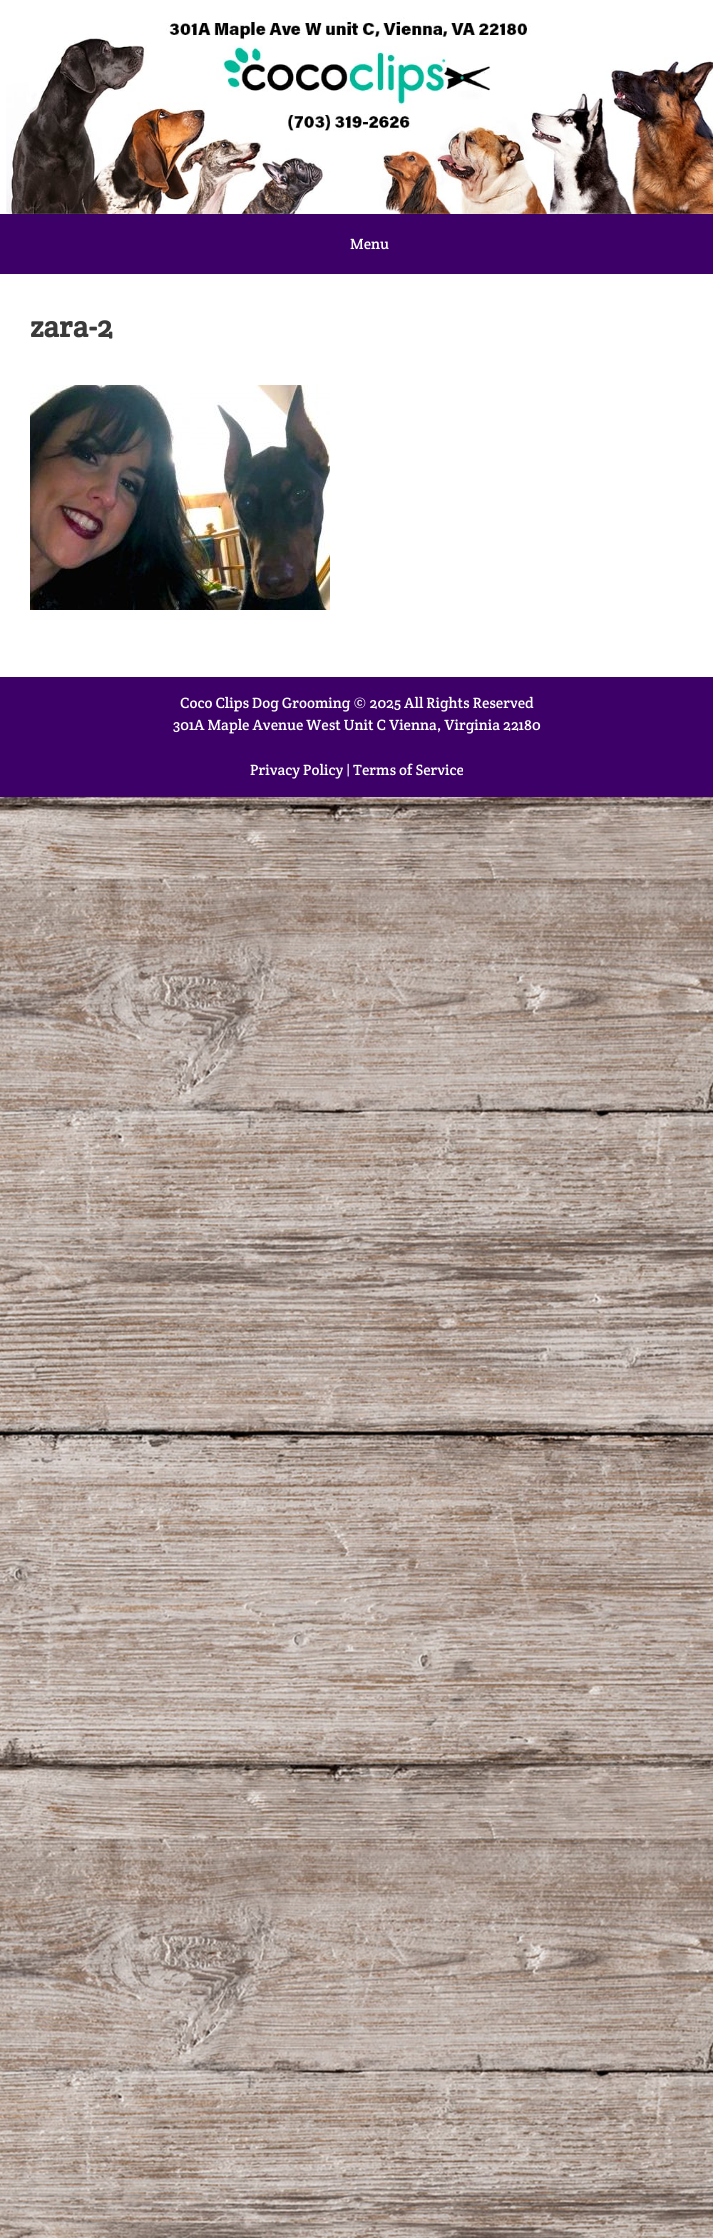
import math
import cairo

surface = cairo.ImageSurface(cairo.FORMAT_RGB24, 713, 2238)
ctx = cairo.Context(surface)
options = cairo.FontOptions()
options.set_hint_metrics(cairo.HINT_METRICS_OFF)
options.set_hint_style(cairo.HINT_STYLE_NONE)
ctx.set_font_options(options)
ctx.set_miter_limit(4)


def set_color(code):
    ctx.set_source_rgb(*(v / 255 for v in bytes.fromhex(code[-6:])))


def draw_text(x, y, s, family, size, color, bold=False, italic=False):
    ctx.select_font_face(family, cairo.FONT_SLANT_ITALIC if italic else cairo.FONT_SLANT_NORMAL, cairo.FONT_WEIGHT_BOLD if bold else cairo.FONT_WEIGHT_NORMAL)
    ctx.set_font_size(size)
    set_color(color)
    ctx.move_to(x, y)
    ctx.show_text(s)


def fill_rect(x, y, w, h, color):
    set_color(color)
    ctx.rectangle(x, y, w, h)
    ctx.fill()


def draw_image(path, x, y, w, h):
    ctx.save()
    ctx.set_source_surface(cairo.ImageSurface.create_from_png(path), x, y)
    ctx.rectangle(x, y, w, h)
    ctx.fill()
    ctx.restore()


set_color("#ffffff")
ctx.paint()
draw_image("assets/img1.png", 0, 797, 713, 1441)
draw_image("assets/img2.png", 6, 17, 707, 197)
fill_rect(0, 214, 713, 60, "#3c0068")
draw_text(350, 249, "Menu", "Crete Round", 15, "#ffffff")
draw_text(30, 337, "zara-2", "Crete Round", 30, "#3a3a3a", bold=True)
draw_image("assets/img3.png", 30, 385, 300, 225)
fill_rect(0, 677, 713, 120, "#3c0068")
draw_text(180, 708, "Coco Clips Dog Grooming © 2025 All Rights Reserved", "Crete Round", 15, "#ffffff")
draw_text(173, 730, "301A Maple Avenue West Unit C Vienna, Virginia 22180", "Crete Round", 15, "#ffffff")
draw_text(250, 775, "Privacy Policy | Terms of Service", "Crete Round", 15, "#ffffff")
surface.write_to_png("output.png")
